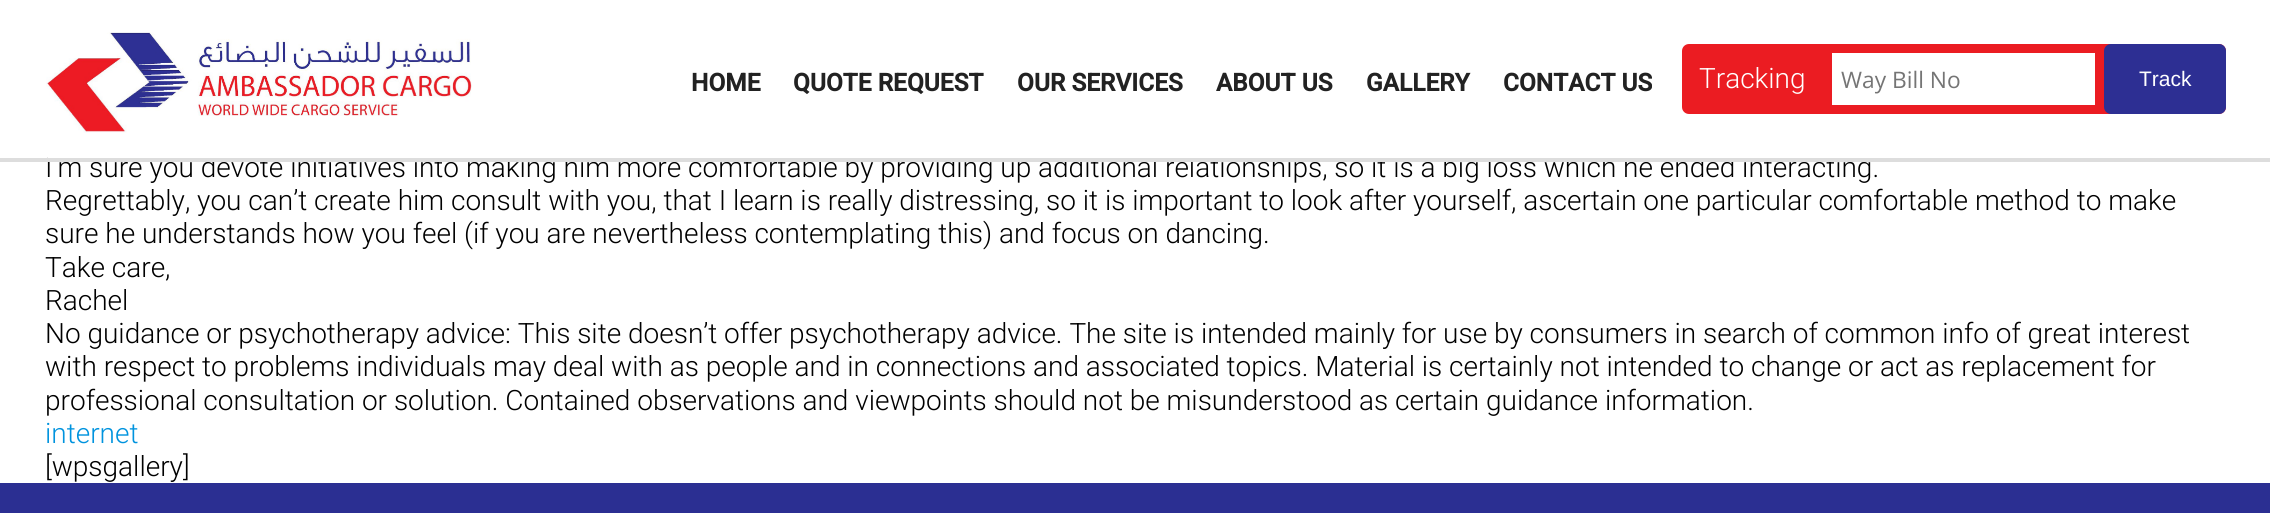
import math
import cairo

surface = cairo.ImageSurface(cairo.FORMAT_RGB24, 2270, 513)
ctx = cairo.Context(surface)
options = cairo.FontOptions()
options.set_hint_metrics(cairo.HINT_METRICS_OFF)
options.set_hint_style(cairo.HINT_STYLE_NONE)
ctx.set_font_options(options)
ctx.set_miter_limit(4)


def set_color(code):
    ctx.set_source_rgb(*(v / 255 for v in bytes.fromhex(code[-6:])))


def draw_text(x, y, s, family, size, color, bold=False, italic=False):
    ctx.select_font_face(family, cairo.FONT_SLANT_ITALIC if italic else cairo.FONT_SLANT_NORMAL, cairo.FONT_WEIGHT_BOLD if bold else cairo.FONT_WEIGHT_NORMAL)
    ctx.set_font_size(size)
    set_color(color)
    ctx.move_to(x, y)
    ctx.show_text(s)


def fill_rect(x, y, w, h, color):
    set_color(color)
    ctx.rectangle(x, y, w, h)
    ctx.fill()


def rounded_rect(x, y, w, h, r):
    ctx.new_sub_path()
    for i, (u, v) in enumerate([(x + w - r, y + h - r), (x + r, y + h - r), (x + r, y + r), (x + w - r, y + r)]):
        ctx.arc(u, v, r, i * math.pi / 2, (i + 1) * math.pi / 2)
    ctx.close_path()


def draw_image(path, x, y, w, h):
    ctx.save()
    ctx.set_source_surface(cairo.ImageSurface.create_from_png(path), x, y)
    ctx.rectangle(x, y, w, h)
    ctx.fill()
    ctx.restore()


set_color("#ffffff")
ctx.paint()
draw_text(45, 177, "I’m sure you devote initiatives into making him more comfortable by providing up additional relationships, so it is a big loss which he ended interacting.", "Roboto Light", 28, "#000000")
fill_rect(48, 155, 1792, 3, "#ffffff")
fill_rect(0, 158, 2270, 4, "#dddddd")
draw_image("assets/img1.png", 46, 32, 426, 101)
draw_text(691, 91, "HOME", "Roboto", 24.5, "#222222", bold=True)
draw_text(793, 91, "QUOTE REQUEST", "Roboto", 24.5, "#222222", bold=True)
draw_text(1017, 91, "OUR SERVICES", "Roboto", 24.5, "#222222", bold=True)
draw_text(1216, 91, "ABOUT US", "Roboto", 24.5, "#222222", bold=True)
draw_text(1366, 91, "GALLERY", "Roboto", 24.5, "#222222", bold=True)
draw_text(1503, 91, "CONTACT US", "Roboto", 24.5, "#222222", bold=True)
set_color("#eb1c22")
rounded_rect(1682, 44, 544, 70, 7)
ctx.fill()
draw_text(1699, 88, "Tracking", "Roboto Light", 28, "#ffffff")
fill_rect(1832, 53, 263, 52, "#ffffff")
draw_text(1841, 88, "Way Bill No", "Open Sans", 22.75, "#757575")
set_color("#2d2f93")
rounded_rect(2104, 44, 122, 70, 7)
ctx.fill()
draw_text(2139, 86, "Track", "Liberation Sans", 21, "#ffffff")
draw_text(45, 210, "Regrettably, you can’t create him consult with you, that I learn is really distressing, so it is important to look after yourself, ascertain one particular comfortable method to make", "Roboto Light", 28, "#000000")
draw_text(45, 243, "sure he understands how you feel (if you are nevertheless contemplating this) and focus on dancing.", "Roboto Light", 28, "#000000")
draw_text(45, 277, "Take care,", "Roboto Light", 28, "#000000")
draw_text(45, 310, "Rachel", "Roboto Light", 28, "#000000")
draw_text(45, 343, "No guidance or psychotherapy advice: This site doesn’t offer psychotherapy advice. The site is intended mainly for use by consumers in search of common info of great interest", "Roboto Light", 28, "#000000")
draw_text(45, 376, "with respect to problems individuals may deal with as people and in connections and associated topics. Material is certainly not intended to change or act as replacement for", "Roboto Light", 28, "#000000")
draw_text(45, 410, "professional consultation or solution. Contained observations and viewpoints should not be misunderstood as certain guidance information.", "Roboto Light", 28, "#000000")
draw_text(45, 443, "internet", "Roboto Light", 28, "#0093de")
draw_text(45, 476, "[wpsgallery]", "Roboto Light", 28, "#000000")
fill_rect(0, 483, 2270, 30, "#2b2f92")
surface.write_to_png("output.png")
